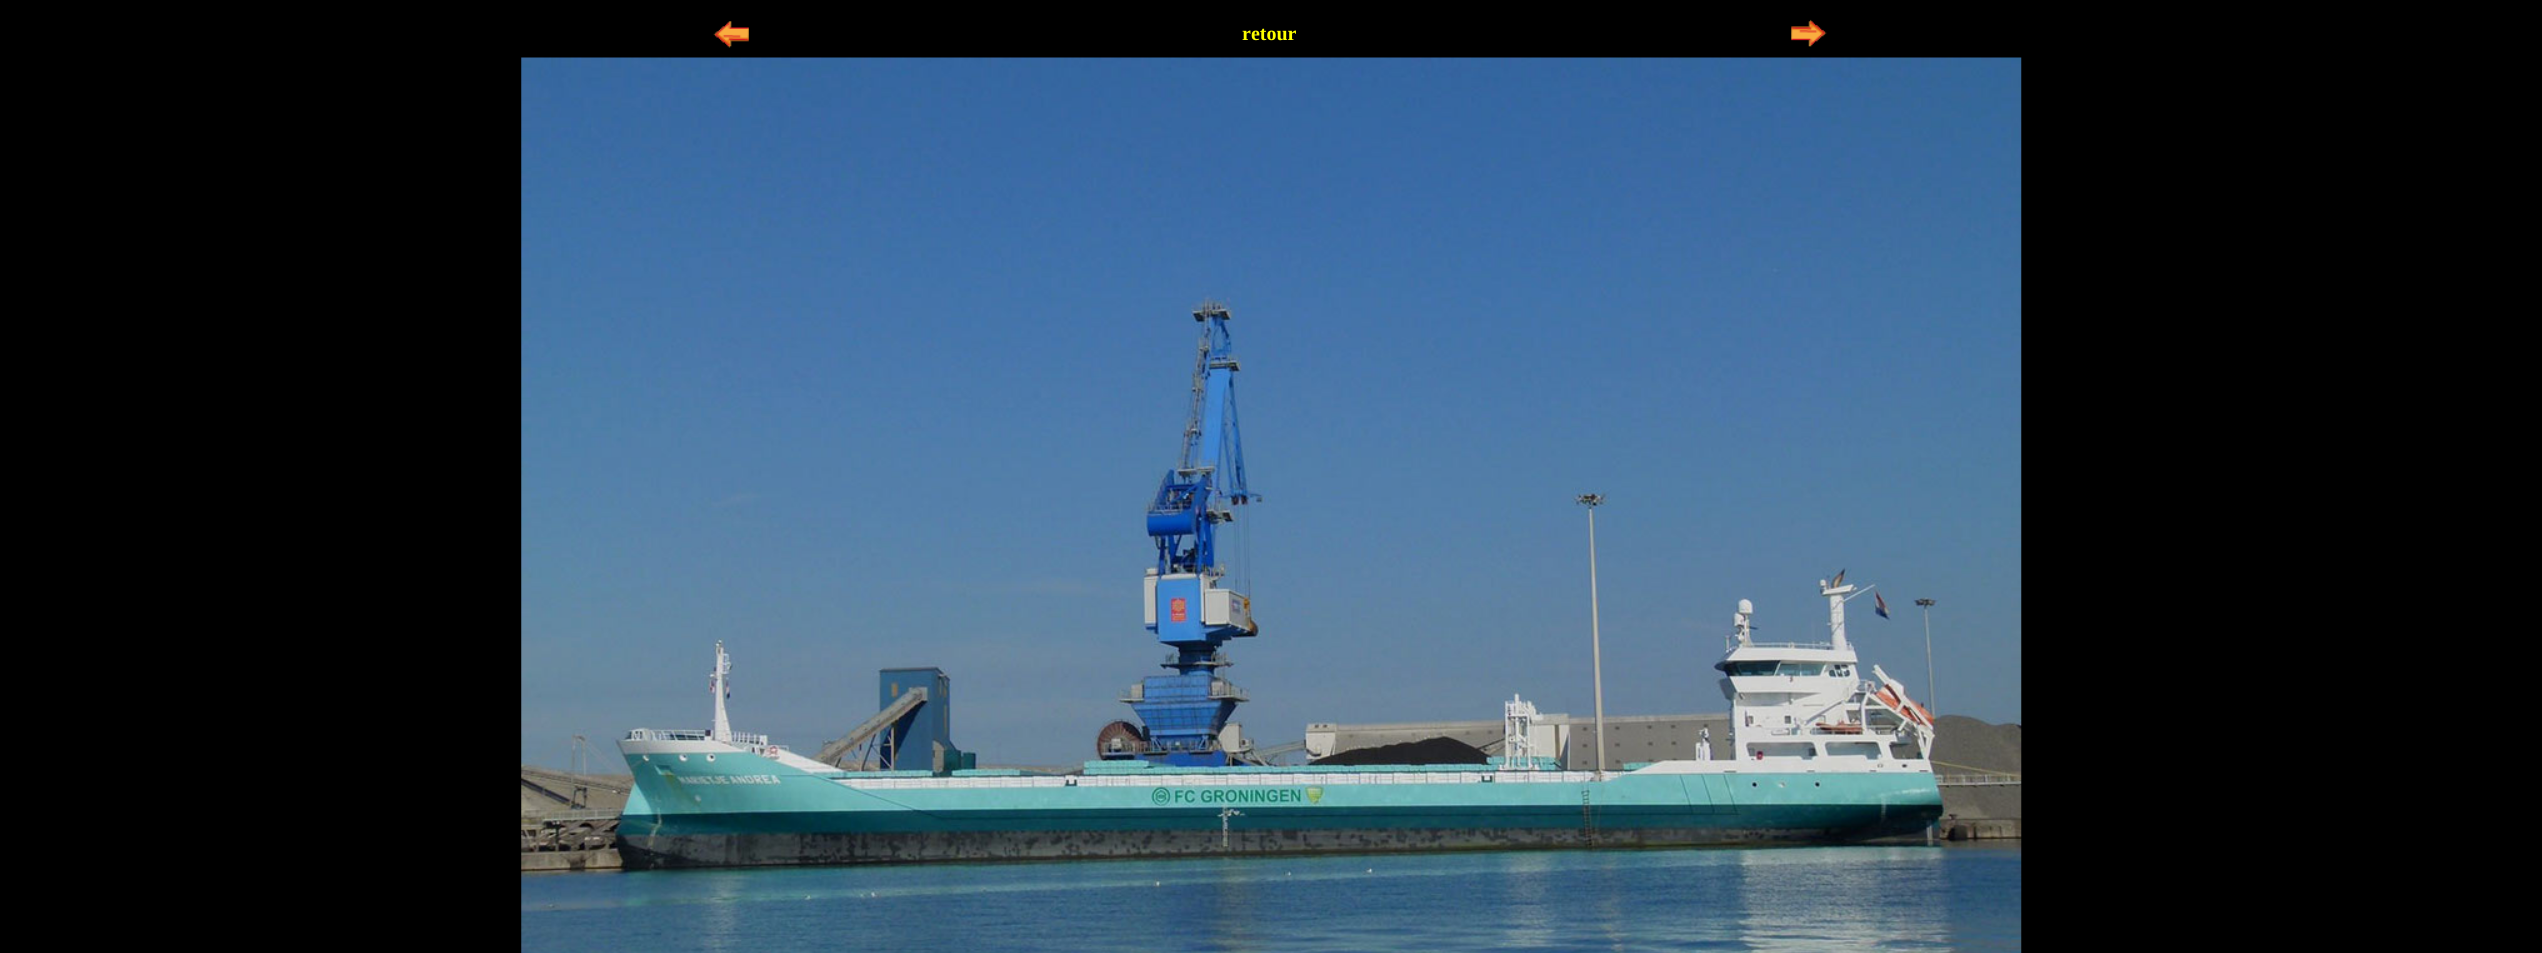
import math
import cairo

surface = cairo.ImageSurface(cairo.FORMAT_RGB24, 2542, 953)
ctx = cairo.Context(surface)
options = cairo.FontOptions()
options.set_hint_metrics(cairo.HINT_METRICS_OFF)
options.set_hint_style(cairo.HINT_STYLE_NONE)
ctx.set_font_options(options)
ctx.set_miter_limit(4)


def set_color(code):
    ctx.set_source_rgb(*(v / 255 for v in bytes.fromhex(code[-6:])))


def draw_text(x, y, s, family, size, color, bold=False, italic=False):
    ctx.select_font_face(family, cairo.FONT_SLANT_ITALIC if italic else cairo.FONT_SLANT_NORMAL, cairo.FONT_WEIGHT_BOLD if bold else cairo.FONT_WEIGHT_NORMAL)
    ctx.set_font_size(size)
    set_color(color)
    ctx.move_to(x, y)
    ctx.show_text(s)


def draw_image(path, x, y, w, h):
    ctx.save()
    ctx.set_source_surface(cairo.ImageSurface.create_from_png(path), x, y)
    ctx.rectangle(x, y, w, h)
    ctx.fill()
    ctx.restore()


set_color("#000000")
ctx.paint()
draw_image("assets/img1.png", 713, 21, 36, 27)
draw_text(1242, 40, "retour", "Liberation Serif", 20, "#ffff00", bold=True)
draw_image("assets/img2.png", 1791, 19, 36, 28)
draw_image("assets/img3.png", 521, 57, 1501, 896)
surface.write_to_png("output.png")
